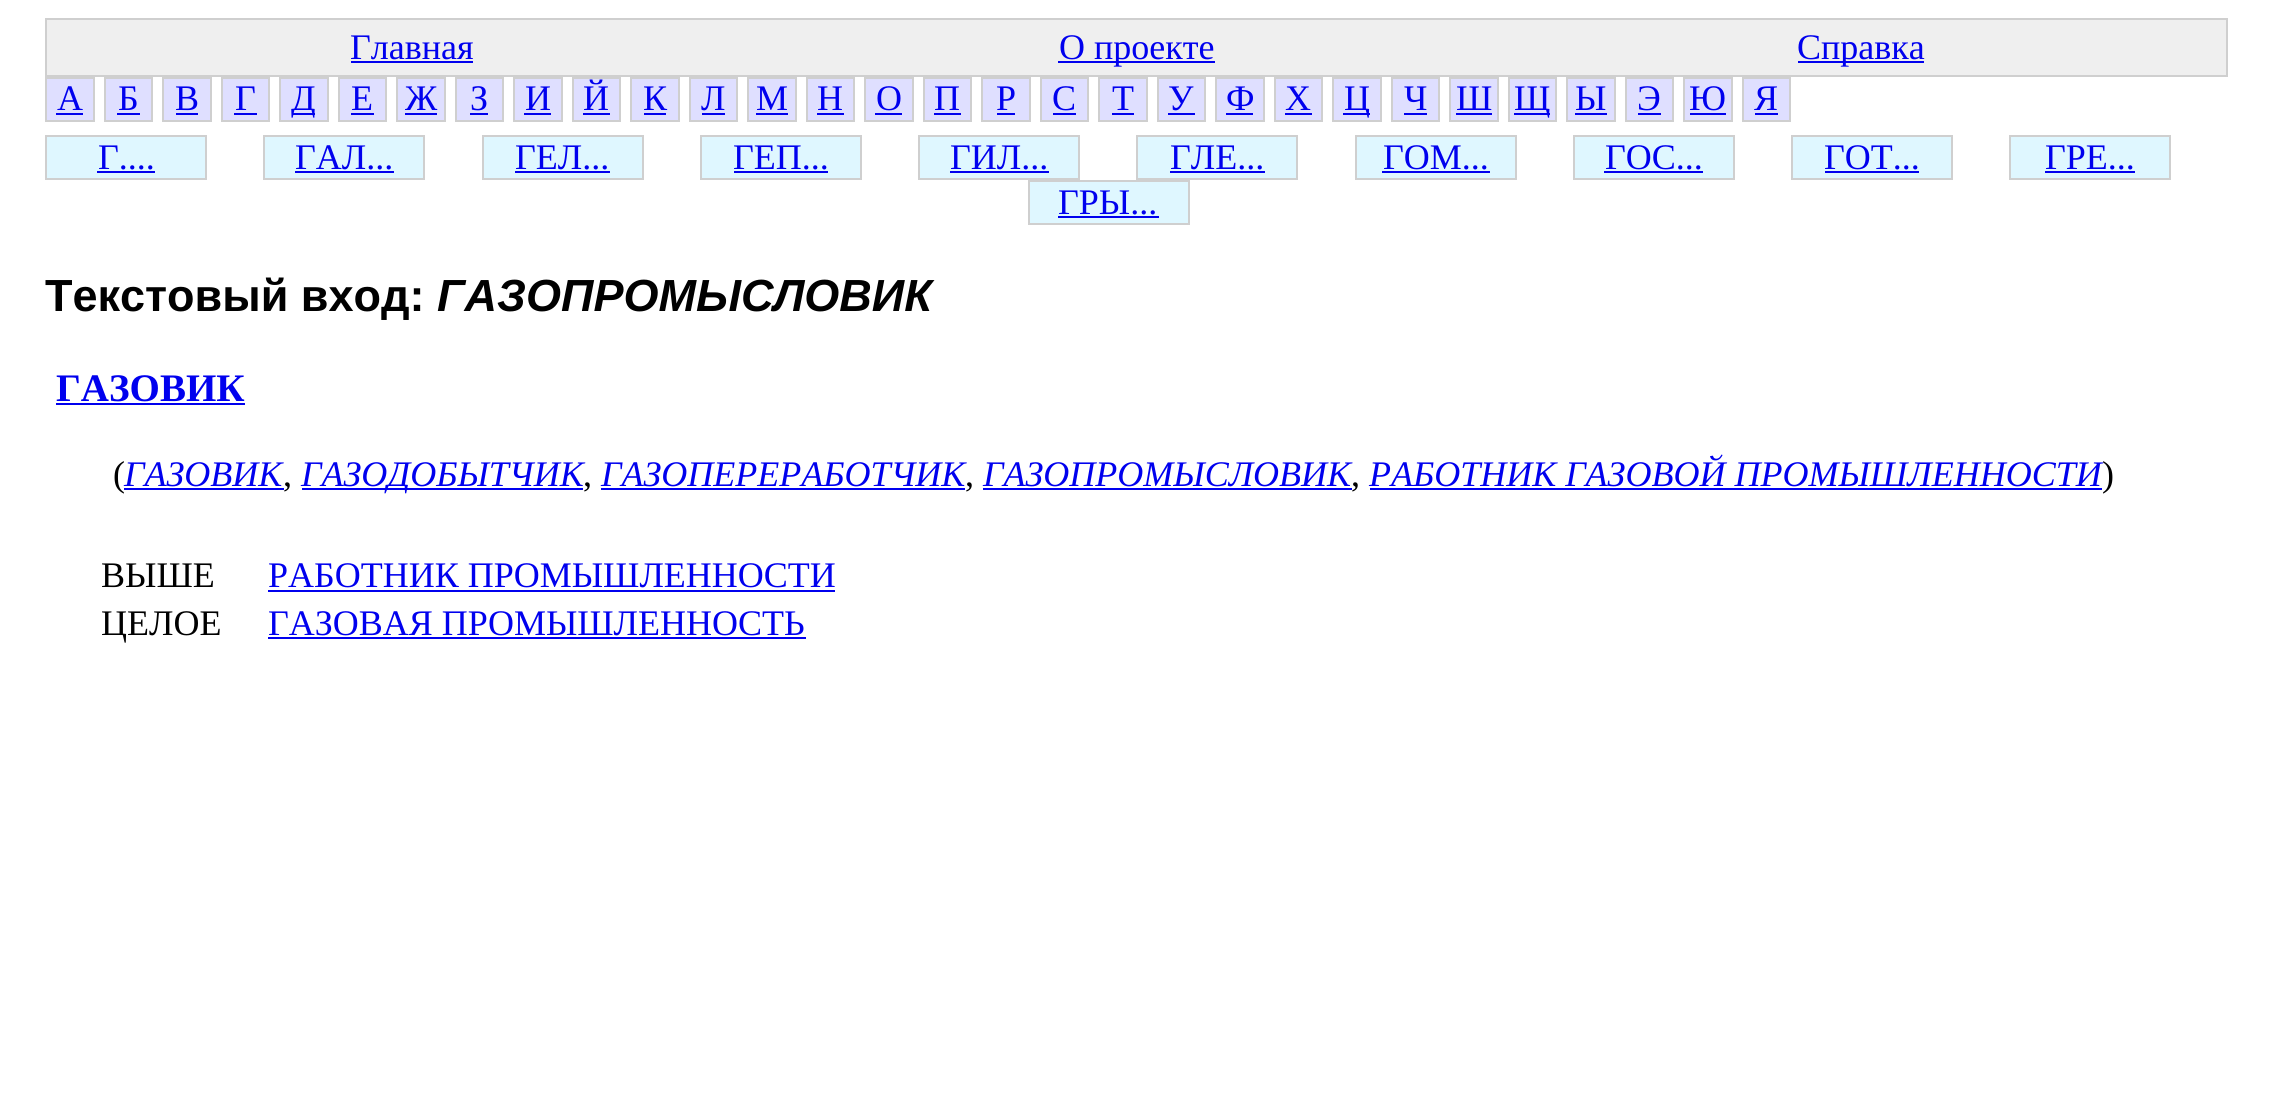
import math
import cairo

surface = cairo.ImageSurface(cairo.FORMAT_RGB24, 2272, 1115)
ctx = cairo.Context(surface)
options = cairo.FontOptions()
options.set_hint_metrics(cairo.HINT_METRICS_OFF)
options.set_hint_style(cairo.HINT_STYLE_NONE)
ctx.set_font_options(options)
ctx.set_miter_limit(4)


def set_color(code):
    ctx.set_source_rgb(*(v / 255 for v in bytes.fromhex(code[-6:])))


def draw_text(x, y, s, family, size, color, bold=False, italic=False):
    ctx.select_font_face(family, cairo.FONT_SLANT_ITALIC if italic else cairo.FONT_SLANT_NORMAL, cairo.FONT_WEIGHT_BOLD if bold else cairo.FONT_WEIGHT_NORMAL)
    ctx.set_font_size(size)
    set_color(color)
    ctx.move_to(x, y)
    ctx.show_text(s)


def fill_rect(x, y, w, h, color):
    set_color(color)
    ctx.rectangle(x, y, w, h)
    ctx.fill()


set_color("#ffffff")
ctx.paint()
set_color("#efefef")
ctx.rectangle(46, 19, 2181, 57)
ctx.fill_preserve()
set_color("#cfcfcf")
ctx.stroke()
draw_text(350, 59, "Главная", "Liberation Serif", 36, "#0000ee")
fill_rect(351, 61, 122, 2, "#0000ee")
fill_rect(1058, 61, 157, 2, "#0000ee")
draw_text(1059, 59, "О проекте", "Liberation Serif", 36, "#0000ee")
fill_rect(1798, 61, 126, 2, "#0000ee")
draw_text(1797, 59, "Справка", "Liberation Serif", 36, "#0000ee")
set_color("#dfdfff")
ctx.rectangle(46, 78, 48, 43)
ctx.fill_preserve()
set_color("#cfcfcf")
ctx.stroke()
draw_text(57, 110, "А", "Liberation Serif", 36, "#0000ee")
fill_rect(56, 113, 27, 2, "#0000ee")
set_color("#dfdfff")
ctx.rectangle(105, 78, 47, 43)
ctx.fill_preserve()
set_color("#cfcfcf")
ctx.stroke()
draw_text(118, 110, "Б", "Liberation Serif", 36, "#0000ee")
fill_rect(117, 113, 23, 2, "#0000ee")
set_color("#dfdfff")
ctx.rectangle(163, 78, 48, 43)
ctx.fill_preserve()
set_color("#cfcfcf")
ctx.stroke()
draw_text(175, 110, "В", "Liberation Serif", 36, "#0000ee")
fill_rect(176, 113, 22, 2, "#0000ee")
set_color("#dfdfff")
ctx.rectangle(222, 78, 47, 43)
ctx.fill_preserve()
set_color("#cfcfcf")
ctx.stroke()
draw_text(235, 110, "Г", "Liberation Serif", 36, "#0000ee")
fill_rect(234, 113, 23, 2, "#0000ee")
set_color("#dfdfff")
ctx.rectangle(280, 78, 48, 43)
ctx.fill_preserve()
set_color("#cfcfcf")
ctx.stroke()
fill_rect(293, 113, 22, 2, "#0000ee")
draw_text(291, 110, "Д", "Liberation Serif", 36, "#0000ee")
set_color("#dfdfff")
ctx.rectangle(339, 78, 47, 43)
ctx.fill_preserve()
set_color("#cfcfcf")
ctx.stroke()
draw_text(351, 110, "Е", "Liberation Serif", 36, "#0000ee")
fill_rect(351, 113, 23, 2, "#0000ee")
set_color("#dfdfff")
ctx.rectangle(397, 78, 48, 43)
ctx.fill_preserve()
set_color("#cfcfcf")
ctx.stroke()
draw_text(405, 110, "Ж", "Liberation Serif", 36, "#0000ee")
fill_rect(405, 113, 32, 2, "#0000ee")
set_color("#dfdfff")
ctx.rectangle(456, 78, 47, 43)
ctx.fill_preserve()
set_color("#cfcfcf")
ctx.stroke()
draw_text(470, 110, "З", "Liberation Serif", 36, "#0000ee")
fill_rect(470, 113, 18, 2, "#0000ee")
set_color("#dfdfff")
ctx.rectangle(514, 78, 48, 43)
ctx.fill_preserve()
set_color("#cfcfcf")
ctx.stroke()
draw_text(525, 110, "И", "Liberation Serif", 36, "#0000ee")
fill_rect(524, 113, 27, 2, "#0000ee")
set_color("#dfdfff")
ctx.rectangle(573, 78, 47, 43)
ctx.fill_preserve()
set_color("#cfcfcf")
ctx.stroke()
draw_text(583, 110, "Й", "Liberation Serif", 36, "#0000ee")
fill_rect(583, 113, 27, 2, "#0000ee")
set_color("#dfdfff")
ctx.rectangle(631, 78, 48, 43)
ctx.fill_preserve()
set_color("#cfcfcf")
ctx.stroke()
draw_text(643, 110, "К", "Liberation Serif", 36, "#0000ee")
fill_rect(644, 113, 22, 2, "#0000ee")
set_color("#dfdfff")
ctx.rectangle(690, 78, 47, 43)
ctx.fill_preserve()
set_color("#cfcfcf")
ctx.stroke()
draw_text(701, 110, "Л", "Liberation Serif", 36, "#0000ee")
fill_rect(702, 113, 23, 2, "#0000ee")
set_color("#dfdfff")
ctx.rectangle(748, 78, 48, 43)
ctx.fill_preserve()
set_color("#cfcfcf")
ctx.stroke()
draw_text(756, 110, "М", "Liberation Serif", 36, "#0000ee")
fill_rect(756, 113, 32, 2, "#0000ee")
set_color("#dfdfff")
ctx.rectangle(807, 78, 47, 43)
ctx.fill_preserve()
set_color("#cfcfcf")
ctx.stroke()
draw_text(817, 110, "Н", "Liberation Serif", 36, "#0000ee")
fill_rect(817, 113, 27, 2, "#0000ee")
set_color("#dfdfff")
ctx.rectangle(865, 78, 48, 43)
ctx.fill_preserve()
set_color("#cfcfcf")
ctx.stroke()
draw_text(876, 110, "О", "Liberation Serif", 36, "#0000ee")
fill_rect(875, 113, 27, 2, "#0000ee")
set_color("#dfdfff")
ctx.rectangle(924, 78, 47, 43)
ctx.fill_preserve()
set_color("#cfcfcf")
ctx.stroke()
draw_text(934, 110, "П", "Liberation Serif", 36, "#0000ee")
fill_rect(934, 113, 27, 2, "#0000ee")
set_color("#dfdfff")
ctx.rectangle(982, 78, 48, 43)
ctx.fill_preserve()
set_color("#cfcfcf")
ctx.stroke()
draw_text(996, 110, "Р", "Liberation Serif", 36, "#0000ee")
fill_rect(997, 113, 18, 2, "#0000ee")
set_color("#dfdfff")
ctx.rectangle(1041, 78, 47, 43)
ctx.fill_preserve()
set_color("#cfcfcf")
ctx.stroke()
draw_text(1052, 110, "С", "Liberation Serif", 36, "#0000ee")
fill_rect(1053, 113, 23, 2, "#0000ee")
set_color("#dfdfff")
ctx.rectangle(1099, 78, 48, 43)
ctx.fill_preserve()
set_color("#cfcfcf")
ctx.stroke()
draw_text(1112, 110, "Т", "Liberation Serif", 36, "#0000ee")
fill_rect(1112, 113, 22, 2, "#0000ee")
set_color("#dfdfff")
ctx.rectangle(1158, 78, 47, 43)
ctx.fill_preserve()
set_color("#cfcfcf")
ctx.stroke()
draw_text(1168, 110, "У", "Liberation Serif", 36, "#0000ee")
fill_rect(1168, 113, 27, 2, "#0000ee")
set_color("#dfdfff")
ctx.rectangle(1216, 78, 48, 43)
ctx.fill_preserve()
set_color("#cfcfcf")
ctx.stroke()
draw_text(1226, 110, "Ф", "Liberation Serif", 36, "#0000ee")
fill_rect(1226, 113, 27, 2, "#0000ee")
set_color("#dfdfff")
ctx.rectangle(1275, 78, 47, 43)
ctx.fill_preserve()
set_color("#cfcfcf")
ctx.stroke()
draw_text(1285, 110, "Х", "Liberation Serif", 36, "#0000ee")
fill_rect(1285, 113, 27, 2, "#0000ee")
set_color("#dfdfff")
ctx.rectangle(1333, 78, 48, 43)
ctx.fill_preserve()
set_color("#cfcfcf")
ctx.stroke()
fill_rect(1343, 113, 27, 2, "#0000ee")
draw_text(1344, 110, "Ц", "Liberation Serif", 36, "#0000ee")
set_color("#dfdfff")
ctx.rectangle(1392, 78, 47, 43)
ctx.fill_preserve()
set_color("#cfcfcf")
ctx.stroke()
draw_text(1404, 110, "Ч", "Liberation Serif", 36, "#0000ee")
fill_rect(1404, 113, 23, 2, "#0000ee")
set_color("#dfdfff")
ctx.rectangle(1450, 78, 48, 43)
ctx.fill_preserve()
set_color("#cfcfcf")
ctx.stroke()
draw_text(1456, 110, "Ш", "Liberation Serif", 36, "#0000ee")
fill_rect(1456, 113, 36, 2, "#0000ee")
set_color("#dfdfff")
ctx.rectangle(1509, 78, 47, 43)
ctx.fill_preserve()
set_color("#cfcfcf")
ctx.stroke()
fill_rect(1514, 113, 36, 2, "#0000ee")
draw_text(1514, 110, "Щ", "Liberation Serif", 36, "#0000ee")
set_color("#dfdfff")
ctx.rectangle(1567, 78, 48, 43)
ctx.fill_preserve()
set_color("#cfcfcf")
ctx.stroke()
draw_text(1575, 110, "Ы", "Liberation Serif", 36, "#0000ee")
fill_rect(1575, 113, 32, 2, "#0000ee")
set_color("#dfdfff")
ctx.rectangle(1626, 78, 47, 43)
ctx.fill_preserve()
set_color("#cfcfcf")
ctx.stroke()
draw_text(1637, 110, "Э", "Liberation Serif", 36, "#0000ee")
fill_rect(1638, 113, 23, 2, "#0000ee")
set_color("#dfdfff")
ctx.rectangle(1684, 78, 48, 43)
ctx.fill_preserve()
set_color("#cfcfcf")
ctx.stroke()
draw_text(1689, 110, "Ю", "Liberation Serif", 36, "#0000ee")
fill_rect(1690, 113, 36, 2, "#0000ee")
set_color("#dfdfff")
ctx.rectangle(1743, 78, 47, 43)
ctx.fill_preserve()
set_color("#cfcfcf")
ctx.stroke()
draw_text(1754, 110, "Я", "Liberation Serif", 36, "#0000ee")
fill_rect(1755, 113, 23, 2, "#0000ee")
set_color("#dff7ff")
ctx.rectangle(46, 136, 160, 43)
ctx.fill_preserve()
set_color("#cfcfcf")
ctx.stroke()
draw_text(98, 169, "Г....", "Liberation Serif", 36, "#0000ee")
fill_rect(97, 171, 58, 2, "#0000ee")
set_color("#dff7ff")
ctx.rectangle(264, 136, 160, 43)
ctx.fill_preserve()
set_color("#cfcfcf")
ctx.stroke()
draw_text(295, 169, "ГАЛ...", "Liberation Serif", 36, "#0000ee")
fill_rect(295, 171, 99, 2, "#0000ee")
set_color("#dff7ff")
ctx.rectangle(483, 136, 160, 43)
ctx.fill_preserve()
set_color("#cfcfcf")
ctx.stroke()
draw_text(515, 169, "ГЕЛ...", "Liberation Serif", 36, "#0000ee")
fill_rect(515, 171, 95, 2, "#0000ee")
set_color("#dff7ff")
ctx.rectangle(701, 136, 160, 43)
ctx.fill_preserve()
set_color("#cfcfcf")
ctx.stroke()
draw_text(733, 169, "ГЕП...", "Liberation Serif", 36, "#0000ee")
fill_rect(734, 171, 94, 2, "#0000ee")
set_color("#dff7ff")
ctx.rectangle(919, 136, 160, 43)
ctx.fill_preserve()
set_color("#cfcfcf")
ctx.stroke()
draw_text(950, 169, "ГИЛ...", "Liberation Serif", 36, "#0000ee")
fill_rect(950, 171, 99, 2, "#0000ee")
set_color("#dff7ff")
ctx.rectangle(1137, 136, 160, 43)
ctx.fill_preserve()
set_color("#cfcfcf")
ctx.stroke()
draw_text(1170, 169, "ГЛЕ...", "Liberation Serif", 36, "#0000ee")
fill_rect(1170, 171, 95, 2, "#0000ee")
set_color("#dff7ff")
ctx.rectangle(1356, 136, 160, 43)
ctx.fill_preserve()
set_color("#cfcfcf")
ctx.stroke()
draw_text(1383, 169, "ГОМ...", "Liberation Serif", 36, "#0000ee")
fill_rect(1382, 171, 108, 2, "#0000ee")
set_color("#dff7ff")
ctx.rectangle(1574, 136, 160, 43)
ctx.fill_preserve()
set_color("#cfcfcf")
ctx.stroke()
draw_text(1605, 169, "ГОС...", "Liberation Serif", 36, "#0000ee")
fill_rect(1604, 171, 99, 2, "#0000ee")
set_color("#dff7ff")
ctx.rectangle(1792, 136, 160, 43)
ctx.fill_preserve()
set_color("#cfcfcf")
ctx.stroke()
draw_text(1824, 169, "ГОТ...", "Liberation Serif", 36, "#0000ee")
fill_rect(1825, 171, 94, 2, "#0000ee")
set_color("#dff7ff")
ctx.rectangle(2010, 136, 160, 43)
ctx.fill_preserve()
set_color("#cfcfcf")
ctx.stroke()
draw_text(2045, 169, "ГРЕ...", "Liberation Serif", 36, "#0000ee")
fill_rect(2045, 171, 90, 2, "#0000ee")
set_color("#dff7ff")
ctx.rectangle(1029, 181, 160, 43)
ctx.fill_preserve()
set_color("#cfcfcf")
ctx.stroke()
draw_text(1058, 214, "ГРЫ...", "Liberation Serif", 36, "#0000ee")
fill_rect(1058, 216, 101, 2, "#0000ee")
draw_text(45, 311, "Текстовый вход:", "Liberation Sans", 45, "#000000", bold=True)
draw_text(437, 311, "ГАЗОПРОМЫСЛОВИК", "Liberation Sans", 45, "#000000", bold=True, italic=True)
draw_text(56, 401, "ГАЗОВИК", "Liberation Serif", 39, "#0000ee", bold=True)
fill_rect(56, 403, 189, 2, "#0000ee")
draw_text(113, 486, "(", "Liberation Serif", 36, "#000000")
draw_text(124, 486, "ГАЗОВИК", "Liberation Serif", 36, "#0000ee", italic=True)
fill_rect(124, 488, 160, 2, "#0000ee")
draw_text(283, 486, ",", "Liberation Serif", 36, "#000000")
fill_rect(302, 488, 281, 2, "#0000ee")
draw_text(301, 486, "ГАЗОДОБЫТЧИК", "Liberation Serif", 36, "#0000ee", italic=True)
draw_text(583, 486, ",", "Liberation Serif", 36, "#000000")
draw_text(601, 486, "ГАЗОПЕРЕРАБОТЧИК", "Liberation Serif", 36, "#0000ee", italic=True)
fill_rect(601, 488, 364, 2, "#0000ee")
draw_text(965, 486, ",", "Liberation Serif", 36, "#000000")
draw_text(983, 486, "ГАЗОПРОМЫСЛОВИК", "Liberation Serif", 36, "#0000ee", italic=True)
fill_rect(983, 488, 369, 2, "#0000ee")
draw_text(1351, 486, ",", "Liberation Serif", 36, "#000000")
draw_text(1369, 486, "РАБОТНИК ГАЗОВОЙ ПРОМЫШЛЕННОСТИ", "Liberation Serif", 36, "#0000ee", italic=True)
fill_rect(1370, 488, 732, 2, "#0000ee")
draw_text(2102, 486, ")", "Liberation Serif", 36, "#000000")
draw_text(101, 587, "ВЫШЕ", "Liberation Serif", 36, "#000000")
draw_text(268, 587, "РАБОТНИК ПРОМЫШЛЕННОСТИ", "Liberation Serif", 36, "#0000ee")
fill_rect(268, 590, 567, 2, "#0000ee")
draw_text(101, 635, "ЦЕЛОЕ", "Liberation Serif", 36, "#000000")
draw_text(268, 635, "ГАЗОВАЯ ПРОМЫШЛЕННОСТЬ", "Liberation Serif", 36, "#0000ee")
fill_rect(268, 637, 538, 2, "#0000ee")
surface.write_to_png("output.png")
